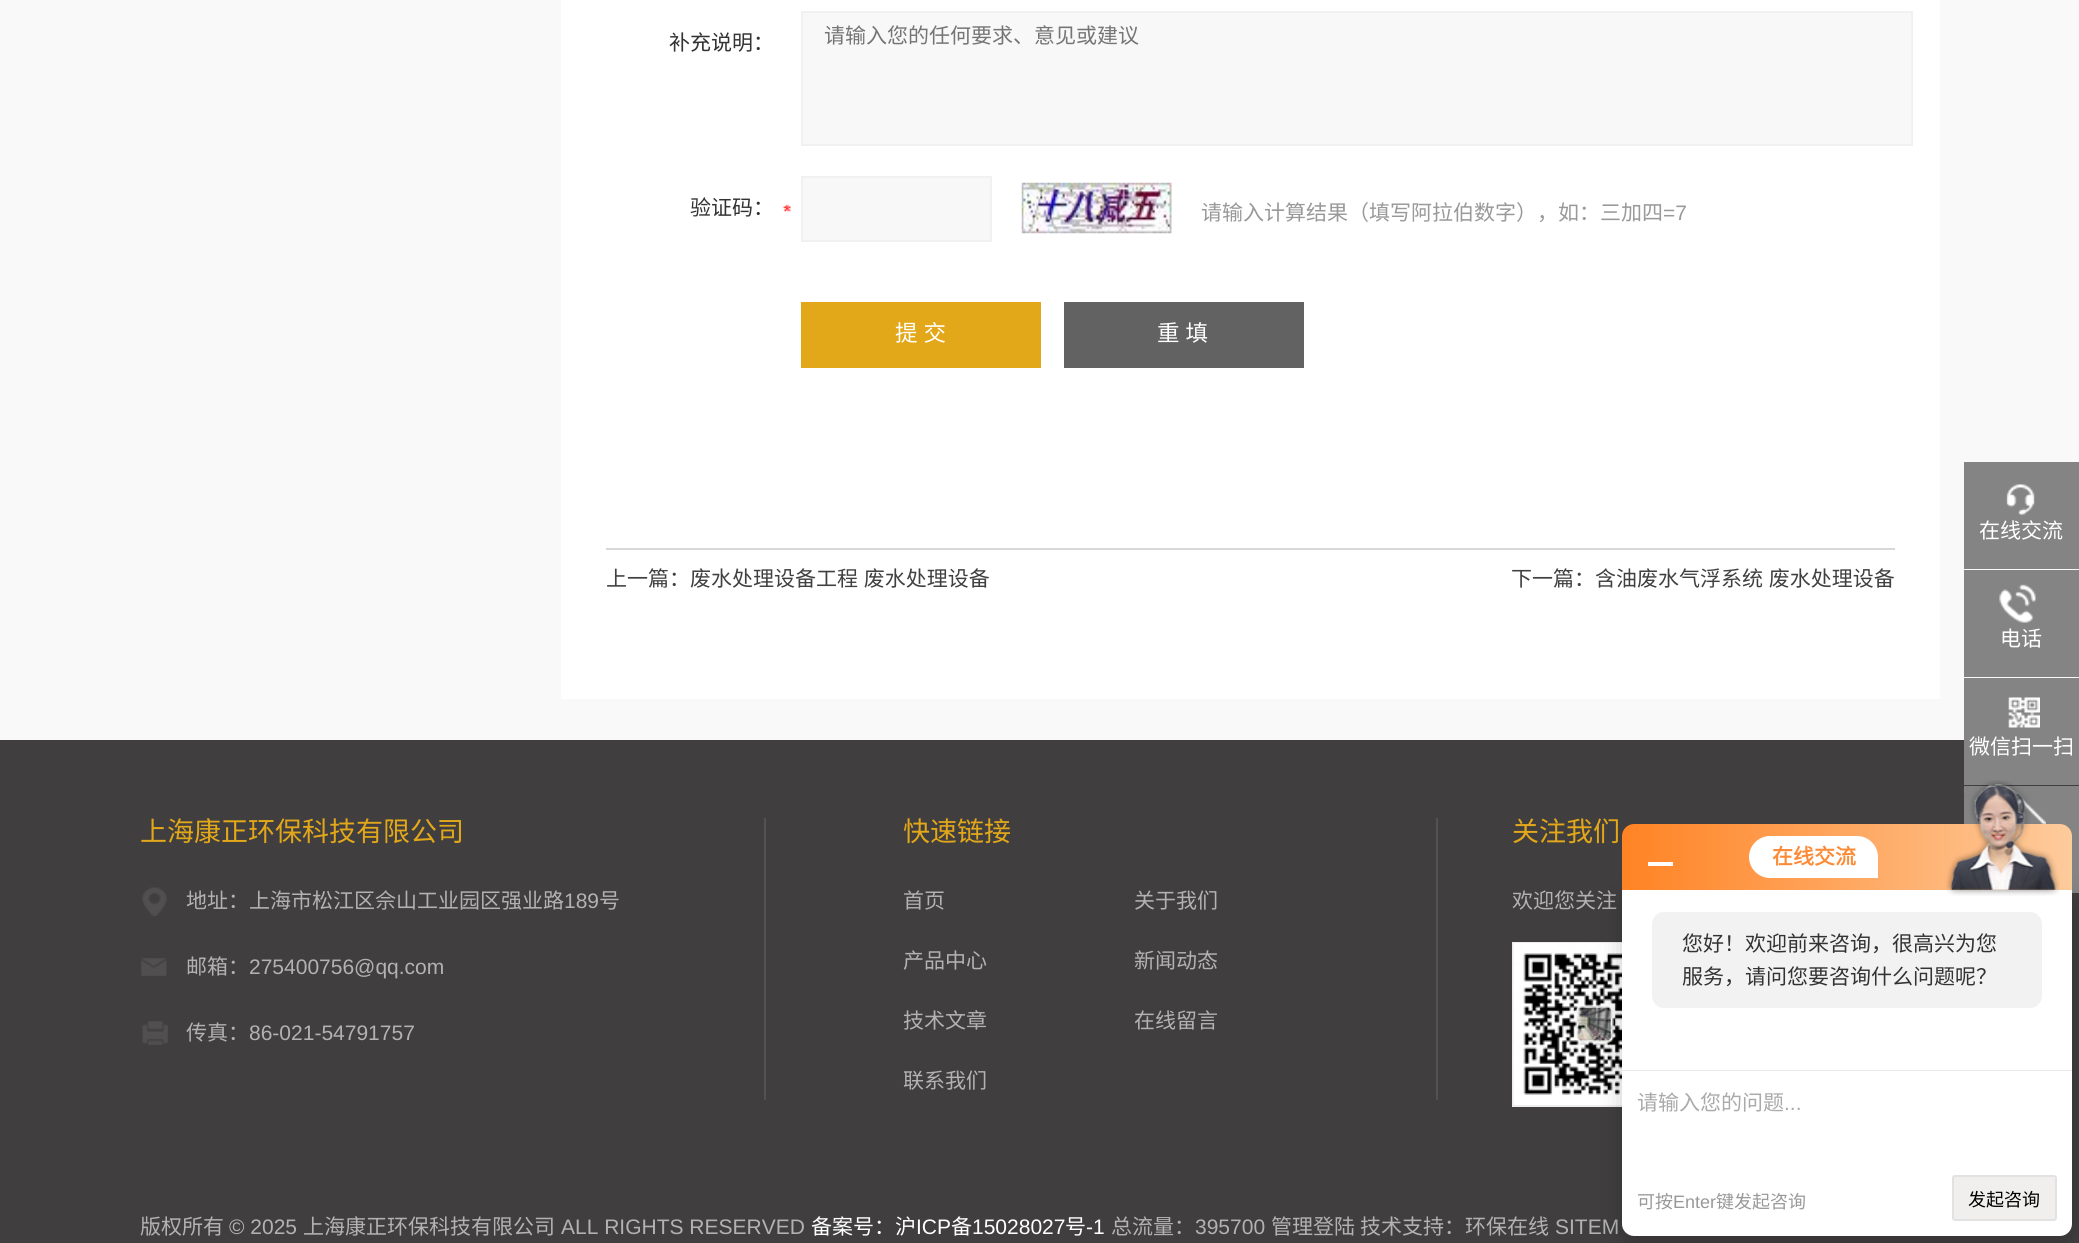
import math
import cairo

surface = cairo.ImageSurface(cairo.FORMAT_RGB24, 2079, 1243)
ctx = cairo.Context(surface)
options = cairo.FontOptions()
options.set_hint_metrics(cairo.HINT_METRICS_OFF)
options.set_hint_style(cairo.HINT_STYLE_NONE)
ctx.set_font_options(options)
ctx.set_miter_limit(4)


def set_color(code):
    ctx.set_source_rgb(*(v / 255 for v in bytes.fromhex(code[-6:])))


def draw_text(x, y, s, family, size, color, bold=False, italic=False):
    ctx.select_font_face(family, cairo.FONT_SLANT_ITALIC if italic else cairo.FONT_SLANT_NORMAL, cairo.FONT_WEIGHT_BOLD if bold else cairo.FONT_WEIGHT_NORMAL)
    ctx.set_font_size(size)
    set_color(color)
    ctx.move_to(x, y)
    ctx.show_text(s)


def draw_spaced(x, y, s, letter, word):
    ctx.move_to(x, y)
    for ch in s:
        ctx.show_text(ch)
        ctx.rel_move_to(letter + word * (ch == ' '), 0)


def fill_rect(x, y, w, h, color):
    set_color(color)
    ctx.rectangle(x, y, w, h)
    ctx.fill()


def rounded_rect(x, y, w, h, r):
    ctx.new_sub_path()
    for i, (u, v) in enumerate([(x + w - r, y + h - r), (x + r, y + h - r), (x + r, y + r), (x + w - r, y + r)]):
        ctx.arc(u, v, r, i * math.pi / 2, (i + 1) * math.pi / 2)
    ctx.close_path()


def draw_shadow(x, y, w, h, r, blur, alpha):
    ctx.push_group_with_content(cairo.CONTENT_ALPHA)
    ctx.set_operator(cairo.OPERATOR_SOURCE)
    for i in range(15, -16, -2):
        e = blur * i / 6
        if min(w, h) + 2 * e > 0:
            ctx.set_source_rgba(0, 0, 0, alpha * math.erfc((i - 1) / 8.5) / 2)
            rounded_rect(x - e, y - e, w + 2 * e, h + 2 * e, max(0, min(r + e + blur * .6, min(w, h) / 2 + e)))
            ctx.fill()
    ctx.mask(ctx.pop_group())


def draw_image(path, x, y, w, h):
    ctx.save()
    ctx.set_source_surface(cairo.ImageSurface.create_from_png(path), x, y)
    ctx.rectangle(x, y, w, h)
    ctx.fill()
    ctx.restore()


set_color("#403e3e")
ctx.paint()
fill_rect(0, 0, 2079, 740, "#f9f9f9")
fill_rect(561, 0, 1379, 699, "#ffffff")
draw_text(669, 50, "补充说明：", "Noto Sans CJK SC", 21, "#333333")
set_color("#f8f8f8")
ctx.rectangle(802, 12, 1110, 133)
ctx.fill_preserve()
set_color("#f1f1f1")
ctx.stroke()
draw_text(824, 43, "请输入您的任何要求、意见或建议", "Noto Sans CJK SC", 21, "#757575")
draw_image("assets/img1.png", 782, 204, 9, 8)
draw_text(690, 215, "验证码：", "Noto Sans CJK SC", 21, "#333333")
set_color("#f8f8f8")
ctx.rectangle(802, 177, 189, 64)
ctx.fill_preserve()
set_color("#f1f1f1")
ctx.stroke()
draw_image("assets/img2.png", 1021, 182, 151, 52)
draw_text(1201, 220, "请输入计算结果（填写阿拉伯数字），如：三加四", "Noto Sans CJK SC", 21, "#999999")
draw_text(1663, 220, "=7", "Liberation Sans", 21, "#999999")
fill_rect(801, 302, 240, 66, "#e3a81a")
ctx.select_font_face("Noto Sans CJK SC")
ctx.set_font_size(22.5)
set_color("#ffffff")
draw_spaced(895, 341, "提 交", 0, 1)
fill_rect(1064, 302, 240, 66, "#626262")
set_color("#ffffff")
draw_spaced(1157, 341, "重 填", 0, 1)
fill_rect(606, 548, 1289, 2, "#d8d8d8")
draw_text(606, 586, "上一篇：", "Noto Sans CJK SC", 21, "#404040")
draw_spaced(690, 586, "废水处理设备工程 废水处理设备", 0, 1)
draw_text(1511, 586, "下一篇：", "Noto Sans CJK SC", 21, "#404040")
draw_spaced(1595, 586, "含油废水气浮系统 废水处理设备", 0, 1)
fill_rect(1964, 462, 115, 107, "#848484")
draw_image("assets/img3.png", 2006, 484, 29, 31)
draw_text(1979, 538, "在线交流", "Noto Sans CJK SC", 21, "#ffffff")
fill_rect(1964, 570, 115, 107, "#848484")
draw_image("assets/img4.png", 1999, 584, 37, 39)
draw_text(2000, 646, "电话", "Noto Sans CJK SC", 21, "#ffffff")
fill_rect(1964, 678, 115, 107, "#848484")
draw_image("assets/img5.png", 2008, 697, 32, 31)
draw_text(1969, 754, "微信扫一扫", "Noto Sans CJK SC", 21, "#ffffff")
fill_rect(1964, 786, 115, 107, "#848484")
draw_image("assets/img6.png", 2016, 799, 30, 25)
draw_text(140, 841, "上海康正环保科技有限公司", "Noto Sans CJK SC", 27, "#e3a81a")
draw_image("assets/img7.png", 142, 887, 25, 29)
draw_text(186, 908, "地址：上海市松江区佘山工业园区强业路", "Noto Sans CJK SC", 21, "#b3b2b2")
draw_text(564, 908, "189", "Liberation Sans", 21, "#b3b2b2")
draw_text(599, 908, "号", "Noto Sans CJK SC", 21, "#b3b2b2")
draw_image("assets/img8.png", 141, 958, 26, 18)
draw_text(186, 974, "邮箱：", "Noto Sans CJK SC", 21, "#b3b2b2")
draw_text(249, 974, "275400756@qq.com", "Liberation Sans", 21, "#b3b2b2")
draw_image("assets/img9.png", 142, 1021, 26, 24)
draw_text(186, 1040, "传真：", "Noto Sans CJK SC", 21, "#b3b2b2")
draw_text(249, 1040, "86-021-54791757", "Liberation Sans", 21, "#b3b2b2")
fill_rect(1436, 818, 2, 282, "#535151")
fill_rect(764, 818, 2, 282, "#535151")
draw_text(903, 841, "快速链接", "Noto Sans CJK SC", 27, "#e3a81a")
draw_text(903, 908, "首页", "Noto Sans CJK SC", 21, "#b3b2b2")
draw_text(1134, 908, "关于我们", "Noto Sans CJK SC", 21, "#b3b2b2")
draw_text(903, 968, "产品中心", "Noto Sans CJK SC", 21, "#b3b2b2")
draw_text(1134, 968, "新闻动态", "Noto Sans CJK SC", 21, "#b3b2b2")
draw_text(903, 1028, "技术文章", "Noto Sans CJK SC", 21, "#b3b2b2")
draw_text(1134, 1028, "在线留言", "Noto Sans CJK SC", 21, "#b3b2b2")
draw_text(903, 1088, "联系我们", "Noto Sans CJK SC", 21, "#b3b2b2")
draw_text(1512, 841, "关注我们", "Noto Sans CJK SC", 27, "#e3a81a")
draw_text(1512, 908, "欢迎您关注", "Noto Sans CJK SC", 21, "#b3b2b2")
ctx.rectangle(1513, 943, 163, 163)
set_color("#ededed")
ctx.stroke()
draw_image("assets/img10.png", 1513, 943, 109, 162)
draw_text(140, 1234, "版权所有", "Noto Sans CJK SC", 21, "#b3b2b2")
draw_text(229, 1234, "© 2025", "Liberation Sans", 21, "#b3b2b2")
draw_text(303, 1234, "上海康正环保科技有限公司", "Noto Sans CJK SC", 21, "#b3b2b2")
draw_text(561, 1234, "ALL RIGHTS RESERVED", "Liberation Sans", 21, "#b3b2b2")
draw_text(811, 1234, "备案号：沪", "Noto Sans CJK SC", 21, "#ffffff")
draw_text(916, 1234, "ICP", "Liberation Sans", 21, "#ffffff")
draw_text(951, 1234, "备", "Noto Sans CJK SC", 21, "#ffffff")
draw_text(972, 1234, "15028027", "Liberation Sans", 21, "#ffffff")
draw_text(1065, 1234, "号", "Noto Sans CJK SC", 21, "#ffffff")
draw_text(1086, 1234, "-1", "Liberation Sans", 21, "#ffffff")
draw_text(1111, 1234, "总流量：", "Noto Sans CJK SC", 21, "#b3b2b2")
draw_text(1195, 1234, "395700", "Liberation Sans", 21, "#b3b2b2")
draw_text(1271, 1234, "管理登陆", "Noto Sans CJK SC", 21, "#b3b2b2")
draw_text(1360, 1234, "技术支持：环保在线", "Noto Sans CJK SC", 21, "#b3b2b2")
draw_text(1555, 1234, "SITEM", "Liberation Sans", 21, "#b3b2b2")
set_color("#000000")
draw_shadow(1622, 896, 450, 346, 12, 12, 0.2)
gradient = cairo.LinearGradient(1622, 857, 2072, 857)
gradient.add_color_stop_rgba(0, 1, 0.514, 0.141, 1)
gradient.add_color_stop_rgba(1, 0.996, 0.796, 0.612, 1)
ctx.set_source(gradient)
ctx.new_path()
ctx.move_to(1634, 824)
ctx.line_to(2060, 824)
ctx.curve_to(2066.5, 824, 2072, 829.5, 2072, 836)
ctx.line_to(2072, 890)
ctx.line_to(1622, 890)
ctx.line_to(1622, 836)
ctx.curve_to(1622, 829.5, 1627.5, 824, 1634, 824)
ctx.close_path()
ctx.fill()
fill_rect(1648, 862, 25, 4, "#ffffff")
ctx.new_path()
ctx.move_to(1770, 836)
ctx.line_to(1857, 836)
ctx.curve_to(1868.5, 836, 1878, 845.5, 1878, 857)
ctx.line_to(1878, 878)
ctx.line_to(1770, 878)
ctx.curve_to(1758.5, 878, 1749, 868.5, 1749, 857)
ctx.curve_to(1749, 845.5, 1758.5, 836, 1770, 836)
ctx.close_path()
ctx.fill()
draw_text(1772, 864, "在线交流", "Noto Sans CJK SC", 21, "#fb8b36", bold=True)
set_color("#ffffff")
ctx.new_path()
ctx.move_to(1622, 890)
ctx.line_to(2072, 890)
ctx.line_to(2072, 1224)
ctx.curve_to(2072, 1230.5, 2066.5, 1236, 2060, 1236)
ctx.line_to(1634, 1236)
ctx.curve_to(1627.5, 1236, 1622, 1230.5, 1622, 1224)
ctx.close_path()
ctx.fill()
draw_image("assets/img11.png", 1946, 780, 114, 116)
set_color("#f2f2f2")
rounded_rect(1652, 912, 390, 96, 12)
ctx.fill()
draw_text(1682, 951, "您好！欢迎前来咨询，很高兴为您", "Noto Sans CJK SC", 21, "#333333")
draw_text(1682, 984, "服务，请问您要咨询什么问题呢？", "Noto Sans CJK SC", 21, "#333333")
fill_rect(1622, 1070, 450, 1, "#eaeaea")
draw_text(1637, 1110, "请输入您的问题", "Noto Sans CJK SC", 21, "#aaaaaa")
draw_text(1784, 1110, "...", "Liberation Sans", 21, "#aaaaaa")
draw_text(1637, 1208, "可按", "Noto Sans CJK SC", 18, "#999999")
draw_text(1673, 1208, "Enter", "Liberation Sans", 18, "#999999")
draw_text(1716, 1208, "键发起咨询", "Noto Sans CJK SC", 18, "#999999")
set_color("#f0efed")
rounded_rect(1953, 1176, 103, 44, 2)
ctx.fill_preserve()
set_color("#e2e2e2")
ctx.stroke()
draw_text(1968, 1206, "发起咨询", "Noto Sans CJK SC", 18, "#000000")
surface.write_to_png("output.png")
